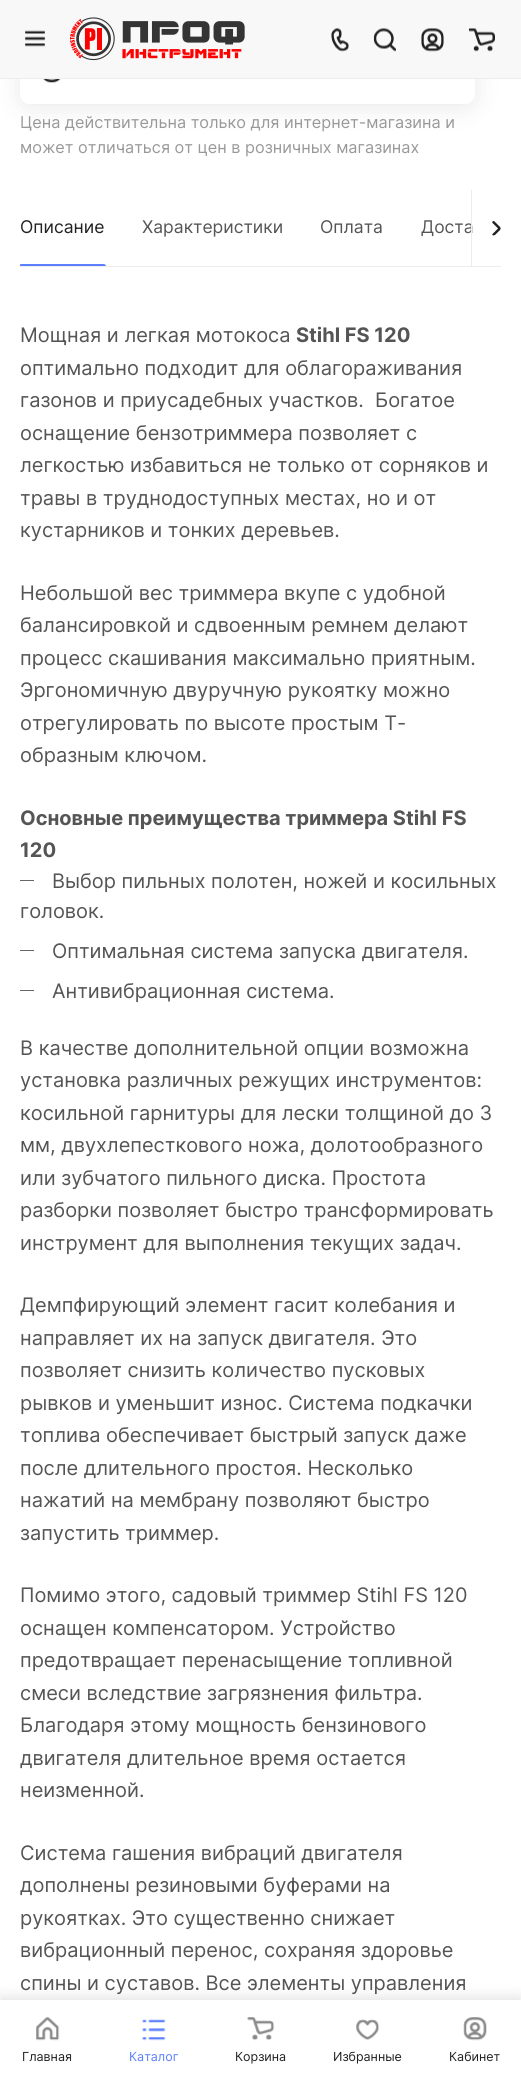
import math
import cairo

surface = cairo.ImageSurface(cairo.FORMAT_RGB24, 521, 2076)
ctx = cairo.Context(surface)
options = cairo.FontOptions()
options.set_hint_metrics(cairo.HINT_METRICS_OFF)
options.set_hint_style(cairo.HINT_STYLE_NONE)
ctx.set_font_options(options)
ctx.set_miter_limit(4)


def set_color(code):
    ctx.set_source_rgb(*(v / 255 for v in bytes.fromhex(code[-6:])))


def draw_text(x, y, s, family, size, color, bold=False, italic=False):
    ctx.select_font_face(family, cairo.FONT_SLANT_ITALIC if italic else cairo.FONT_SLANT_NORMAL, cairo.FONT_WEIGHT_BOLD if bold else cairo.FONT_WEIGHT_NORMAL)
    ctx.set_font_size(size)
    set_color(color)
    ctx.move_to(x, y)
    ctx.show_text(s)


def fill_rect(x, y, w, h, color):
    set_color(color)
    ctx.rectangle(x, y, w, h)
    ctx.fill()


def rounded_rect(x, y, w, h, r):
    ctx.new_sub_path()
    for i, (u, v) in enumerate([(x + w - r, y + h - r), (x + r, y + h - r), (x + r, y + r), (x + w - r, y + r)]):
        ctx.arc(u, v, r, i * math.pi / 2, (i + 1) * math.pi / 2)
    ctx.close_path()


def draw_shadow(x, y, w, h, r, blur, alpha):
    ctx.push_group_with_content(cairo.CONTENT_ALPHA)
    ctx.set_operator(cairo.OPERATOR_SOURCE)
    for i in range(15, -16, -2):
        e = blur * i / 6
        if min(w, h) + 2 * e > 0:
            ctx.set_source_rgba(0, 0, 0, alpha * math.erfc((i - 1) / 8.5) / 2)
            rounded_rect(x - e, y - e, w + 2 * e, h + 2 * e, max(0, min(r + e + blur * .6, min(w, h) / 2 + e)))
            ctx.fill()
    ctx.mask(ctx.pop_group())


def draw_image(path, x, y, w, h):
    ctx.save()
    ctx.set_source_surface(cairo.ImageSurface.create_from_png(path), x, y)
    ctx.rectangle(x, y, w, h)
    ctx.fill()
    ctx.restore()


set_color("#ffffff")
ctx.paint()
set_color("#222222")
draw_shadow(20, -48, 455, 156, 10, 12.5, 0.1)
set_color("#ffffff")
rounded_rect(20, -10, 455, 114, 10)
ctx.fill()
fill_rect(0, 78, 521, 1, "#ededed")
fill_rect(0, 0, 521, 78, "#f8f8f8")
draw_image("assets/img1.png", 25, 30, 20, 17)
draw_image("assets/img2.png", 70, 17, 175, 44)
draw_image("assets/img3.png", 331, 28, 18, 24)
draw_image("assets/img4.png", 373, 28, 23, 24)
draw_image("assets/img5.png", 421, 28, 23, 24)
draw_image("assets/img6.png", 468, 28, 27, 24)
draw_image("assets/img7.png", 43, 79, 18, 4)
draw_text(20, 128, "Цена действительна только для интернет-магазина и", "Inter", 16.25, "#999999")
draw_text(20, 153, "может отличаться от цен в розничных магазинах", "Inter", 16.25, "#999999")
fill_rect(20, 266, 481, 1, "#ededed")
draw_text(20, 233, "Описание", "Inter", 17.5, "#222222")
ctx.save()
ctx.rectangle(20, 190, 481, 76)
ctx.clip()
set_color("#5b7fff")
ctx.new_path()
ctx.move_to(21.5, 264)
ctx.line_to(103.5, 264)
ctx.curve_to(105, 264, 106, 265, 106, 266.5)
ctx.line_to(106, 267)
ctx.line_to(19, 267)
ctx.line_to(19, 266.5)
ctx.curve_to(19, 265, 20, 264, 21.5, 264)
ctx.close_path()
ctx.fill()
ctx.restore()
draw_text(142, 233, "Характеристики", "Inter", 17.5, "#555555")
draw_text(320, 233, "Оплата", "Inter", 17.5, "#555555")
draw_text(421, 233, "Доста", "Inter", 17.5, "#555555")
fill_rect(471, 190, 1, 76, "#ededed")
draw_image("assets/img8.png", 492, 221, 9, 15)
draw_text(20, 342, "Мощная и легкая мотокоса", "Inter", 20, "#555555")
draw_text(296, 342, "Stihl FS 120", "Inter", 20, "#555555", bold=True)
draw_text(20, 375, "оптимально подходит для облагораживания", "Inter", 20, "#555555")
draw_text(20, 407, "газонов и приусадебных участков.  Богатое", "Inter", 20, "#555555")
draw_text(20, 440, "оснащение бензотриммера позволяет с", "Inter", 20, "#555555")
draw_text(20, 472, "легкостью избавиться не только от сорняков и", "Inter", 20, "#555555")
draw_text(20, 505, "травы в труднодоступных местах, но и от", "Inter", 20, "#555555")
draw_text(20, 537, "кустарников и тонких деревьев.", "Inter", 20, "#555555")
draw_text(20, 600, "Небольшой вес триммера вкупе с удобной", "Inter", 20, "#555555")
draw_text(20, 632, "балансировкой и сдвоенным ремнем делают", "Inter", 20, "#555555")
draw_text(20, 665, "процесс скашивания максимально приятным.", "Inter", 20, "#555555")
draw_text(20, 697, "Эргономичную двуручную рукоятку можно", "Inter", 20, "#555555")
draw_text(20, 730, "отрегулировать по высоте простым Т-", "Inter", 20, "#555555")
draw_text(20, 762, "образным ключом.", "Inter", 20, "#555555")
draw_text(20, 825, "Основные преимущества триммера Stihl FS", "Inter", 20, "#555555", bold=True)
draw_text(20, 857, "120", "Inter", 20, "#555555", bold=True)
fill_rect(20, 880, 14, 1, "#666666")
draw_text(52, 888, "Выбор пильных полотен, ножей и косильных", "Inter", 20, "#555555")
draw_text(20, 918, "головок.", "Inter", 20, "#555555")
fill_rect(20, 950, 14, 1, "#666666")
draw_text(52, 958, "Оптимальная система запуска двигателя.", "Inter", 20, "#555555")
fill_rect(20, 990, 14, 1, "#666666")
draw_text(52, 998, "Антивибрационная система.", "Inter", 20, "#555555")
draw_text(20, 1055, "В качестве дополнительной опции возможна", "Inter", 20, "#555555")
draw_text(20, 1087, "установка различных режущих инструментов:", "Inter", 20, "#555555")
draw_text(20, 1120, "косильной гарнитуры для лески толщиной до 3", "Inter", 20, "#555555")
draw_text(20, 1152, "мм, двухлепесткового ножа, долотообразного", "Inter", 20, "#555555")
draw_text(20, 1185, "или зубчатого пильного диска. Простота", "Inter", 20, "#555555")
draw_text(20, 1217, "разборки позволяет быстро трансформировать", "Inter", 20, "#555555")
draw_text(20, 1250, "инструмент для выполнения текущих задач.", "Inter", 20, "#555555")
draw_text(20, 1312, "Демпфирующий элемент гасит колебания и", "Inter", 20, "#555555")
draw_text(20, 1345, "направляет их на запуск двигателя. Это", "Inter", 20, "#555555")
draw_text(20, 1377, "позволяет снизить количество пусковых", "Inter", 20, "#555555")
draw_text(20, 1410, "рывков и уменьшит износ. Система подкачки", "Inter", 20, "#555555")
draw_text(20, 1442, "топлива обеспечивает быстрый запуск даже", "Inter", 20, "#555555")
draw_text(20, 1475, "после длительного простоя. Несколько", "Inter", 20, "#555555")
draw_text(20, 1507, "нажатий на мембрану позволяют быстро", "Inter", 20, "#555555")
draw_text(20, 1540, "запустить триммер.", "Inter", 20, "#555555")
draw_text(20, 1602, "Помимо этого, садовый триммер Stihl FS 120", "Inter", 20, "#555555")
draw_text(20, 1635, "оснащен компенсатором. Устройство", "Inter", 20, "#555555")
draw_text(20, 1667, "предотвращает перенасыщение топливной", "Inter", 20, "#555555")
draw_text(20, 1700, "смеси вследствие загрязнения фильтра.", "Inter", 20, "#555555")
draw_text(20, 1732, "Благодаря этому мощность бензинового", "Inter", 20, "#555555")
draw_text(20, 1765, "двигателя длительное время остается", "Inter", 20, "#555555")
draw_text(20, 1797, "неизменной.", "Inter", 20, "#555555")
draw_text(20, 1860, "Система гашения вибраций двигателя", "Inter", 20, "#555555")
draw_text(20, 1892, "дополнены резиновыми буферами на", "Inter", 20, "#555555")
draw_text(20, 1925, "рукоятках. Это существенно снижает", "Inter", 20, "#555555")
draw_text(20, 1957, "вибрационный перенос, сохраняя здоровье", "Inter", 20, "#555555")
draw_text(20, 1990, "спины и суставов. Все элементы управления", "Inter", 20, "#555555")
set_color("#000000")
draw_shadow(0, 1996, 521, 77, 0, 6, 0.1)
fill_rect(0, 2000, 521, 76, "#ffffff")
draw_image("assets/img9.png", 36, 2017, 24, 24)
draw_text(22, 2061, "Главная", "Inter", 12.5, "#222222")
draw_image("assets/img10.png", 142, 2019, 24, 22)
draw_text(129, 2061, "Каталог", "Inter", 12.5, "#5b7fff")
draw_image("assets/img11.png", 247, 2017, 28, 24)
draw_text(235, 2061, "Корзина", "Inter", 12.5, "#222222")
draw_image("assets/img12.png", 356, 2019, 24, 21)
draw_text(333, 2061, "Избранные", "Inter", 12.5, "#222222")
draw_image("assets/img13.png", 463, 2017, 24, 24)
draw_text(449, 2061, "Кабинет", "Inter", 12.5, "#222222")
surface.write_to_png("output.png")
